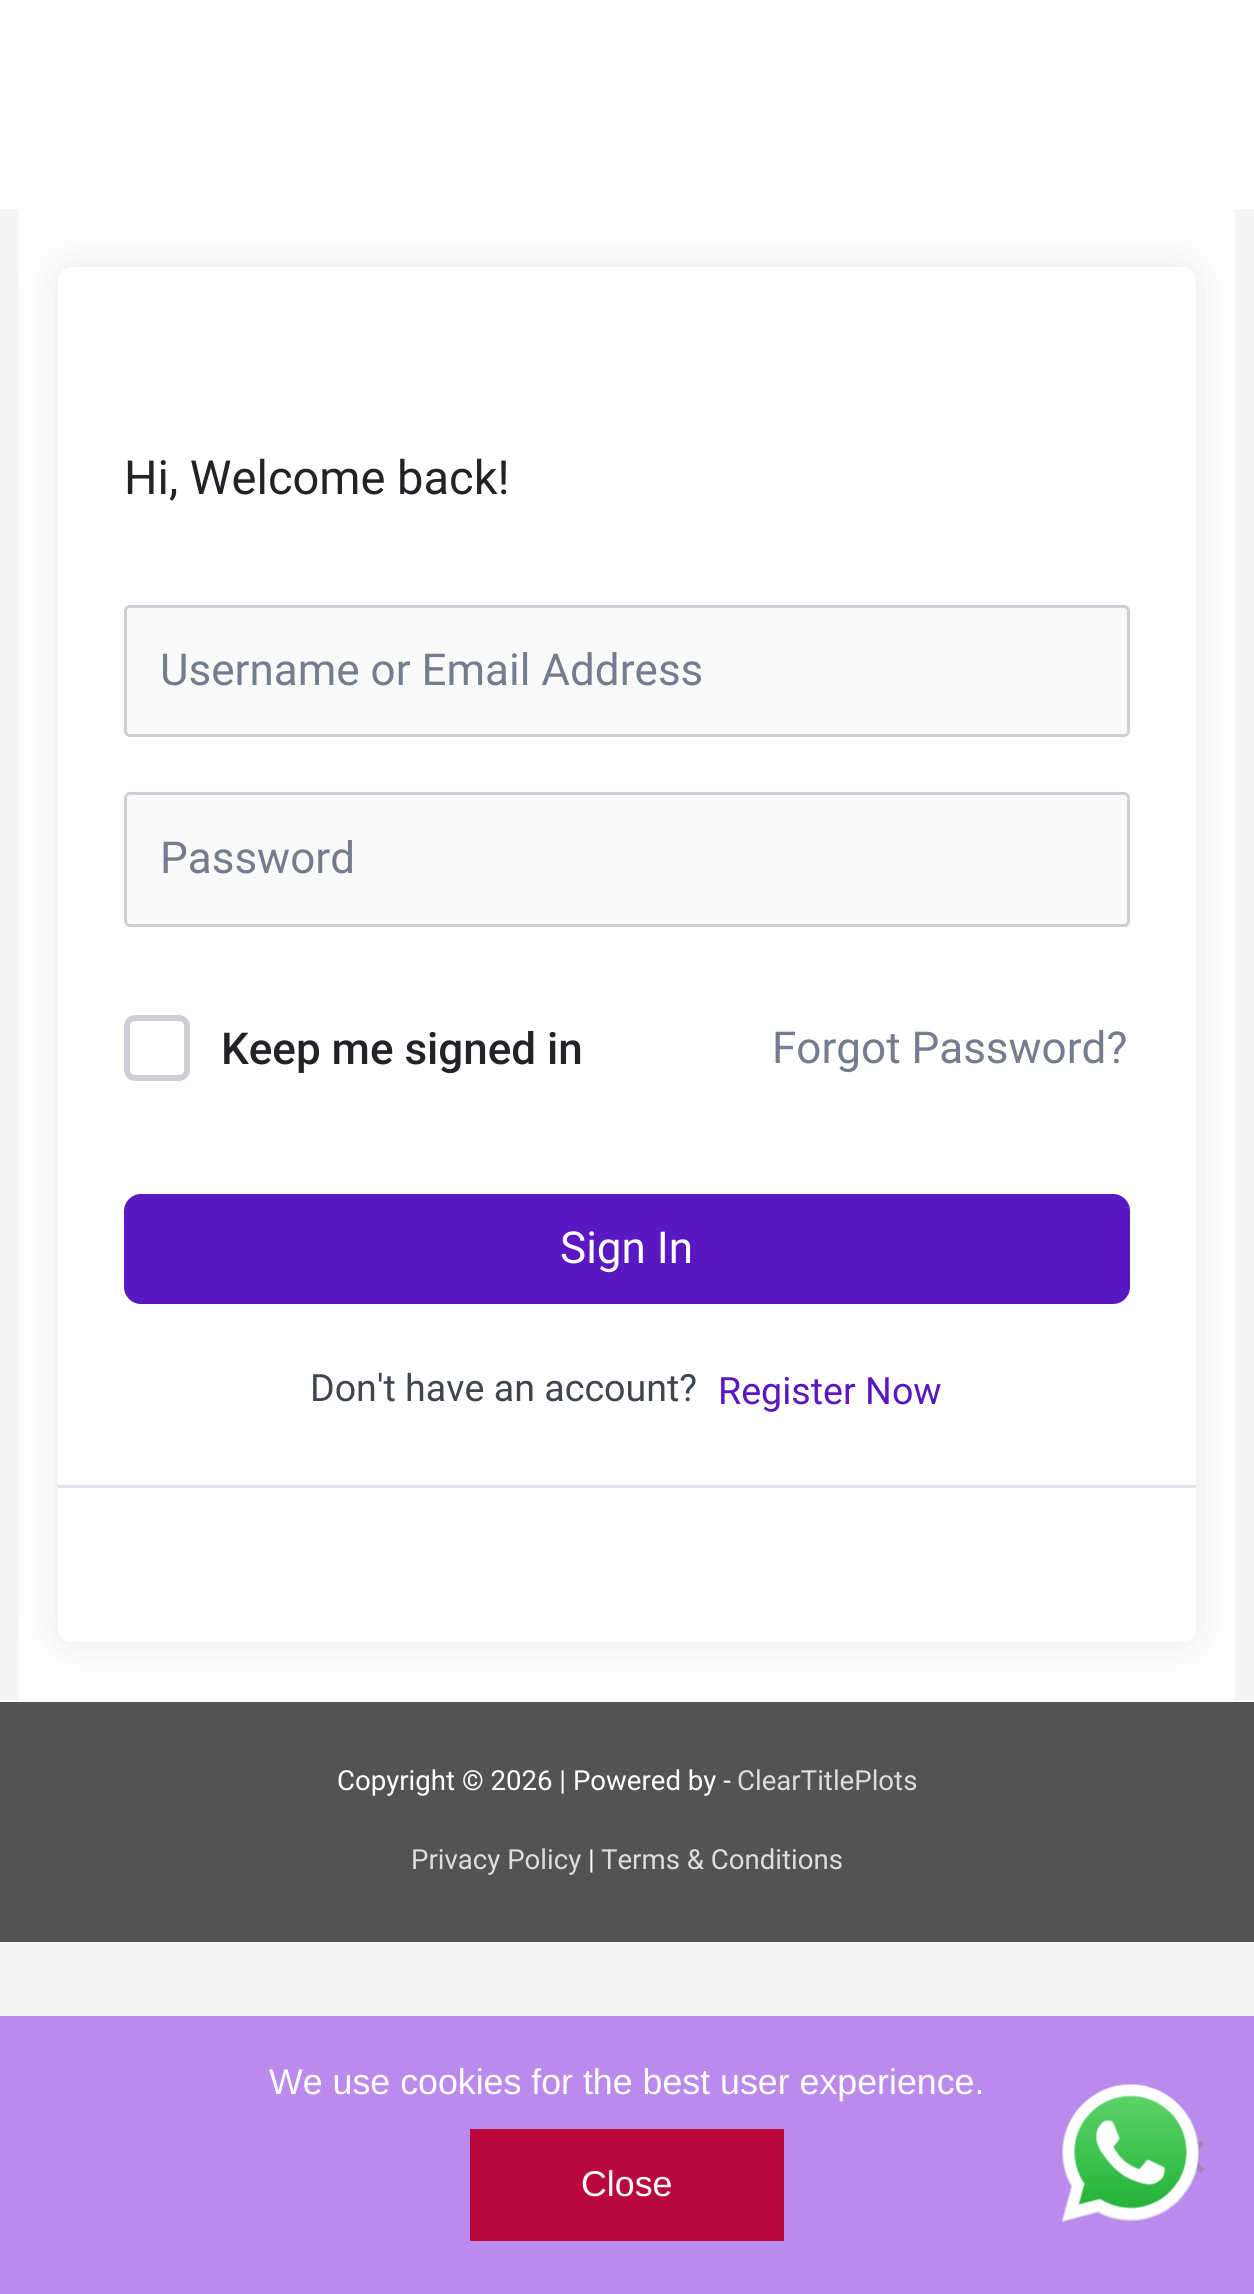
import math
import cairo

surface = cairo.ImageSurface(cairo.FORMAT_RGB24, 1254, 2294)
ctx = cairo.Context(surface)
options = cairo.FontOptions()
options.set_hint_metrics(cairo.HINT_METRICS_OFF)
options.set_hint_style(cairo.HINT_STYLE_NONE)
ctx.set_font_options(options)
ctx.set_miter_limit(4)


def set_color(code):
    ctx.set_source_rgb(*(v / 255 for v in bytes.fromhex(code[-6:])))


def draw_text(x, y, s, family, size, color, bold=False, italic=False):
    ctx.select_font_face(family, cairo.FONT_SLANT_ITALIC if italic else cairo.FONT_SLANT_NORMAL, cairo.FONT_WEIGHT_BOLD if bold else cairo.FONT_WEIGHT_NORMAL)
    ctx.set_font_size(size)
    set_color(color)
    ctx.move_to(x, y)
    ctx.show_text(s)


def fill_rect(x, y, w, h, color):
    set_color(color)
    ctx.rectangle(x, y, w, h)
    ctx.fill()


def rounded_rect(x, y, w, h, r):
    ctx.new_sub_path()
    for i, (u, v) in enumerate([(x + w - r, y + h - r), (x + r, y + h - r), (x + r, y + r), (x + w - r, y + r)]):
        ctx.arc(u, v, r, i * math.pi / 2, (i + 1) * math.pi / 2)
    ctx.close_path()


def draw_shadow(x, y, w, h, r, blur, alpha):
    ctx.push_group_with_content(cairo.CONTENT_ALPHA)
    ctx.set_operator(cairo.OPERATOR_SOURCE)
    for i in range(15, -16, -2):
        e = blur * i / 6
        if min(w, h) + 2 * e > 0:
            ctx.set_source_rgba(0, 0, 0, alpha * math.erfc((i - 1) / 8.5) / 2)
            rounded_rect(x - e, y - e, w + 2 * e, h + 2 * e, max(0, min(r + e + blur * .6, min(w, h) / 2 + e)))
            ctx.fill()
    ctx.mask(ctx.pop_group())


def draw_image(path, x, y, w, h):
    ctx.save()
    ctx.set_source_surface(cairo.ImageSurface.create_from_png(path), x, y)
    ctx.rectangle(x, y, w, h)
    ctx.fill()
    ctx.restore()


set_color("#f5f5f5")
ctx.paint()
fill_rect(19, 209, 1216, 1491, "#ffffff")
ctx.save()
ctx.set_fill_rule(cairo.FILL_RULE_EVEN_ODD)
ctx.new_path()
ctx.move_to(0, 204)
ctx.line_to(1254, 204)
ctx.line_to(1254, 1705)
ctx.line_to(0, 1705)
ctx.close_path()
ctx.move_to(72, 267)
ctx.line_to(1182, 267)
ctx.curve_to(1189.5, 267, 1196, 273.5, 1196, 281)
ctx.line_to(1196, 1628)
ctx.curve_to(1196, 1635.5, 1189.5, 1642, 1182, 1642)
ctx.line_to(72, 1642)
ctx.curve_to(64.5, 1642, 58, 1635.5, 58, 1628)
ctx.line_to(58, 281)
ctx.curve_to(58, 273.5, 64.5, 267, 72, 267)
ctx.close_path()
ctx.clip()
set_color("#000000")
draw_shadow(58, 267, 1138, 1375, 14, 20.5, 0.1)
ctx.restore()
fill_rect(0, 0, 1254, 209, "#ffffff")
draw_text(124, 494, "Hi, Welcome back!", "Roboto", 47, "#212327")
set_color("#fafafa")
rounded_rect(125.5, 606.5, 1003, 129, 4.5)
ctx.fill_preserve()
set_color("#cdcfd5")
ctx.set_line_width(3)
ctx.stroke()
draw_text(160, 685, "Username or Email Address", "Roboto", 44, "#757c8e")
set_color("#fafafa")
rounded_rect(125.5, 793.5, 1003, 132, 4.5)
ctx.fill_preserve()
set_color("#cdcfd5")
ctx.stroke()
draw_text(160, 873, "Password", "Roboto", 44, "#757c8e")
rounded_rect(127, 1018, 60, 60, 8)
set_color("#cdcfd5")
ctx.set_line_width(6)
ctx.stroke()
draw_text(221, 1064, "Keep me signed in", "Roboto Medium", 44, "#212327")
draw_text(772, 1063, "Forgot Password?", "Roboto", 44, "#757c8e")
set_color("#5a18c2")
rounded_rect(125.5, 1195.5, 1003, 107, 15.5)
ctx.fill_preserve()
ctx.set_line_width(3)
ctx.stroke()
draw_text(560, 1263, "Sign In", "Roboto", 44, "#ffffff")
draw_text(310, 1401, "Don't have an account?", "Roboto", 37.6, "#41454f")
draw_text(718, 1404, "Register Now", "Roboto", 37.6, "#5a18c2")
fill_rect(58, 1485, 1138, 3, "#e0e2ea")
fill_rect(0, 1700, 1254, 2, "#ffffff")
fill_rect(0, 1702, 1254, 240, "#535353")
draw_text(337, 1790, "Copyright © 2026 | Powered by -", "Roboto", 27.6, "#ffffff")
draw_text(737, 1790, "ClearTitlePlots", "Roboto", 27.6, "#dddddd")
draw_text(411, 1869, "Privacy Policy", "Roboto", 27.6, "#dddddd")
draw_text(588, 1869, "|", "Roboto", 27.6, "#ffffff")
draw_text(601, 1869, "Terms & Conditions", "Roboto", 27.6, "#dddddd")
fill_rect(0, 2016, 1254, 278, "#ba8aec")
draw_text(269, 2094, "We use cookies for the best user experience.", "Liberation Sans", 35.75, "#ffffff")
set_color("#9d85b6")
ctx.new_path()
ctx.move_to(1200.5, 2140)
ctx.line_to(1204.5, 2144)
ctx.line_to(1175.5, 2173.5)
ctx.line_to(1171.5, 2169.5)
ctx.close_path()
ctx.fill()
ctx.new_path()
ctx.move_to(1171.5, 2144)
ctx.line_to(1175.5, 2140)
ctx.line_to(1204.5, 2169.5)
ctx.line_to(1200.5, 2173.5)
ctx.close_path()
ctx.fill()
fill_rect(470, 2129, 314, 112, "#b9093c")
draw_text(581, 2196, "Close", "Liberation Sans", 35.75, "#ffffff")
draw_image("assets/img1.png", 1061, 2084, 138, 139)
surface.write_to_png("output.png")
